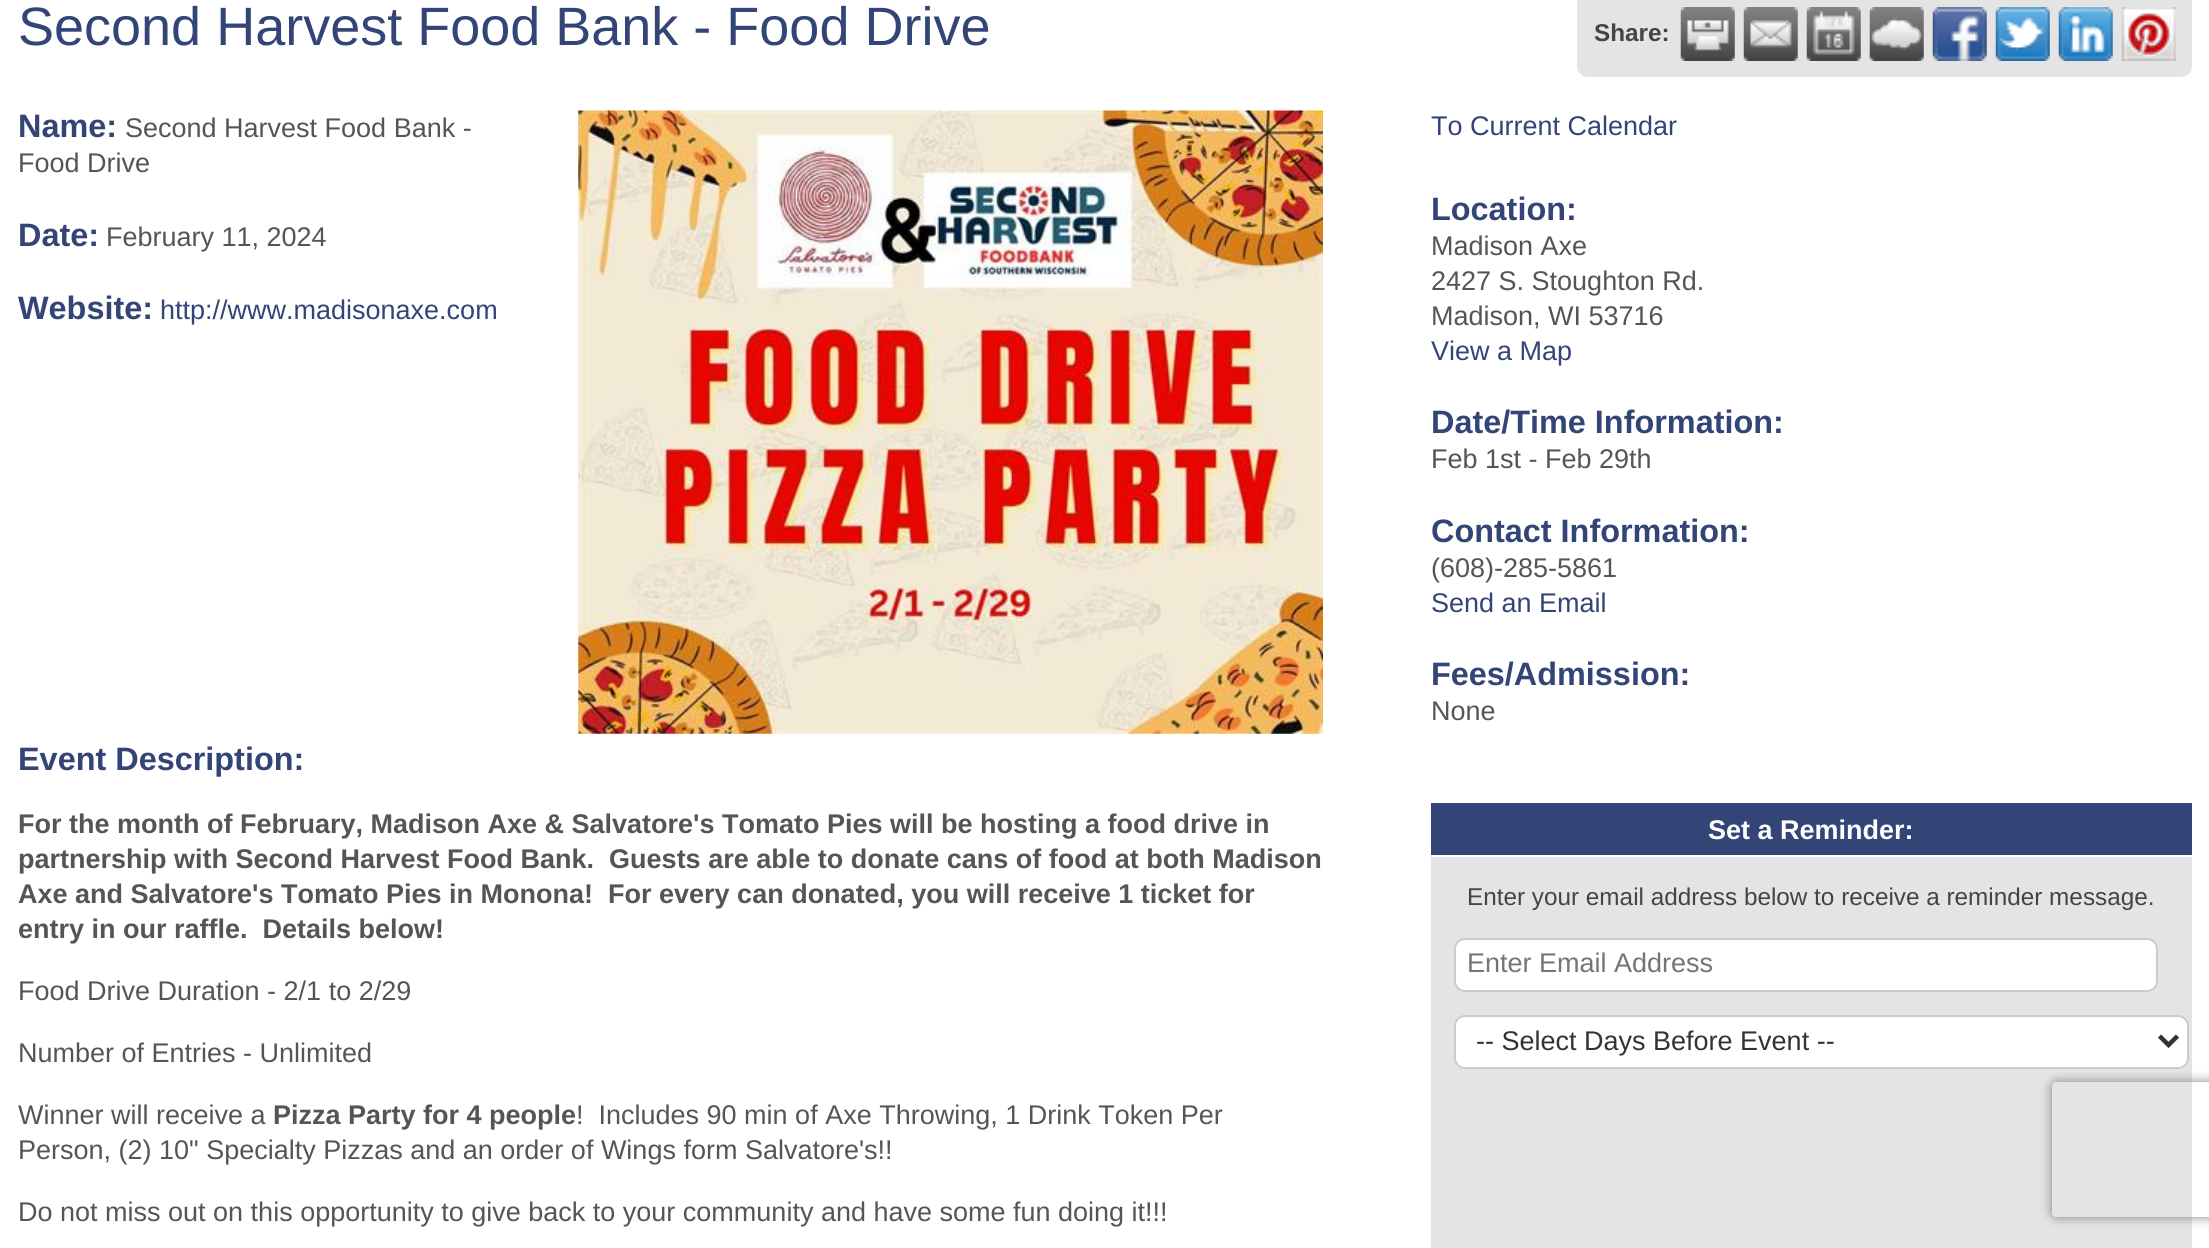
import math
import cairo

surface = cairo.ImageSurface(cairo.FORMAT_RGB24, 2209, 1248)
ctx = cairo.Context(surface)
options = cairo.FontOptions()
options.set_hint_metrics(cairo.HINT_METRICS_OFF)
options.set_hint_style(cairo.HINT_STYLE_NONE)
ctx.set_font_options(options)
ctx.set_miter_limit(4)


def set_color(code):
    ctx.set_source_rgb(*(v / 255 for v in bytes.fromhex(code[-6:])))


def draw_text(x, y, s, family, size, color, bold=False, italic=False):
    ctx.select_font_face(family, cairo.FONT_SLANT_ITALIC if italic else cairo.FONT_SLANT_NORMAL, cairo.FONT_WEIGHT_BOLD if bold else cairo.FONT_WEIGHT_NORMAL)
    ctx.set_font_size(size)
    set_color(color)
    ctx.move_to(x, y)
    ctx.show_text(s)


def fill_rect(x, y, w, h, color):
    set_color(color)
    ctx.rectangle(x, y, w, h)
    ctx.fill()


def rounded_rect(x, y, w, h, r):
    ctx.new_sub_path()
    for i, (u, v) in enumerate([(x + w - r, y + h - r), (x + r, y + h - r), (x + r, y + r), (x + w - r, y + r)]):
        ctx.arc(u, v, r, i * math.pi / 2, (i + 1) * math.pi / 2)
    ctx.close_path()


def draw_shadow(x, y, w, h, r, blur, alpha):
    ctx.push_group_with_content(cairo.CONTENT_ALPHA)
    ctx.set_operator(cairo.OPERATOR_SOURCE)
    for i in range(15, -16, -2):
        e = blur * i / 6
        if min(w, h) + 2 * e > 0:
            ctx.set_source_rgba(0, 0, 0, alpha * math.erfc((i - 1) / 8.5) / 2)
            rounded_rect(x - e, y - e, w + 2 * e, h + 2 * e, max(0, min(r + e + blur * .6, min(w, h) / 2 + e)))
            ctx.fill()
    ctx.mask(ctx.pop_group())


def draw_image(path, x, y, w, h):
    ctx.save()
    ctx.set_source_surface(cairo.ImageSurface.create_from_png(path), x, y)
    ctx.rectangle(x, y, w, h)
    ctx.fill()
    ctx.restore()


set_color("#ffffff")
ctx.paint()
draw_text(18, 45, "Second Harvest Food Bank - Food Drive", "Liberation Sans", 54, "#334477")
set_color("#e4e4e4")
rounded_rect(1577, -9, 615, 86, 11)
ctx.fill()
draw_text(1594, 41, "Share:", "Liberation Sans", 24.3, "#444444", bold=True)
draw_image("assets/img1.png", 1680, 7, 55, 54)
draw_image("assets/img2.png", 1743, 7, 55, 54)
draw_image("assets/img3.png", 1806, 7, 55, 54)
draw_image("assets/img4.png", 1869, 7, 55, 54)
draw_image("assets/img5.png", 1932, 7, 55, 54)
draw_image("assets/img6.png", 1995, 7, 55, 54)
draw_image("assets/img7.png", 2058, 7, 55, 54)
draw_image("assets/img8.png", 2121, 7, 55, 54)
draw_text(18, 137, "Name:", "Liberation Sans", 32.4, "#334477", bold=True)
draw_text(125, 137, "Second Harvest Food Bank -", "Liberation Sans", 27, "#565555")
draw_text(18, 172, "Food Drive", "Liberation Sans", 27, "#565555")
draw_text(18, 246, "Date:", "Liberation Sans", 32.4, "#334477", bold=True)
draw_text(106, 246, "February 11, 2024", "Liberation Sans", 27, "#565555")
draw_text(18, 319, "Website:", "Liberation Sans", 32.4, "#334477", bold=True)
draw_text(160, 319, "http://www.madisonaxe.com", "Liberation Sans", 27, "#334477")
draw_image("assets/img9.png", 578, 110, 745, 624)
draw_text(18, 770, "Event Description:", "Liberation Sans", 32.4, "#334477", bold=True)
draw_text(18, 833, "For the month of February, Madison Axe & Salvatore's Tomato Pies will be hosting a food drive in", "Liberation Sans", 27, "#565555", bold=True)
draw_text(18, 868, "partnership with Second Harvest Food Bank.  Guests are able to donate cans of food at both Madison", "Liberation Sans", 27, "#565555", bold=True)
draw_text(18, 903, "Axe and Salvatore's Tomato Pies in Monona!  For every can donated, you will receive 1 ticket for", "Liberation Sans", 27, "#565555", bold=True)
draw_text(18, 938, "entry in our raffle.  Details below!", "Liberation Sans", 27, "#565555", bold=True)
draw_text(18, 1000, "Food Drive Duration - 2/1 to 2/29", "Liberation Sans", 27, "#565555")
draw_text(18, 1062, "Number of Entries - Unlimited", "Liberation Sans", 27, "#565555")
draw_text(18, 1124, "Winner will receive a", "Liberation Sans", 27, "#565555")
draw_text(273, 1124, "Pizza Party for 4 people", "Liberation Sans", 27, "#565555", bold=True)
draw_text(576, 1124, "!  Includes 90 min of Axe Throwing, 1 Drink Token Per", "Liberation Sans", 27, "#565555")
draw_text(18, 1159, "Person, (2) 10\" Specialty Pizzas and an order of Wings form Salvatore's!!", "Liberation Sans", 27, "#565555")
draw_text(18, 1221, "Do not miss out on this opportunity to give back to your community and have some fun doing it!!!", "Liberation Sans", 27, "#565555")
draw_text(1431, 135, "To Current Calendar", "Liberation Sans", 27, "#334477")
draw_text(1431, 220, "Location:", "Liberation Sans", 32.4, "#334477", bold=True)
draw_text(1431, 255, "Madison Axe", "Liberation Sans", 27, "#565555")
draw_text(1431, 290, "2427 S. Stoughton Rd.", "Liberation Sans", 27, "#565555")
draw_text(1431, 325, "Madison, WI 53716", "Liberation Sans", 27, "#565555")
draw_text(1431, 360, "View a Map", "Liberation Sans", 27, "#334477")
draw_text(1431, 433, "Date/Time Information:", "Liberation Sans", 32.4, "#334477", bold=True)
draw_text(1431, 468, "Feb 1st - Feb 29th", "Liberation Sans", 27, "#565555")
draw_text(1431, 542, "Contact Information:", "Liberation Sans", 32.4, "#334477", bold=True)
draw_text(1431, 577, "(608)-285-5861", "Liberation Sans", 27, "#565555")
draw_text(1431, 612, "Send an Email", "Liberation Sans", 27, "#334477")
draw_text(1431, 685, "Fees/Admission:", "Liberation Sans", 32.4, "#334477", bold=True)
draw_text(1431, 720, "None", "Liberation Sans", 27, "#565555")
fill_rect(1431, 857, 761, 391, "#e4e4e4")
fill_rect(1431, 803, 761, 52, "#334477")
draw_text(1708, 839, "Set a Reminder:", "Liberation Sans", 27, "#ffffff", bold=True)
draw_text(1467, 905, "Enter your email address below to receive a reminder message.", "Liberation Sans", 24.3, "#444444")
set_color("#ffffff")
rounded_rect(1455, 939, 702, 52, 10)
ctx.fill_preserve()
set_color("#cccccc")
ctx.stroke()
draw_text(1467, 972, "Enter Email Address", "Liberation Sans", 27, "#757575")
set_color("#ffffff")
rounded_rect(1455, 1016, 733, 52, 10)
ctx.fill_preserve()
set_color("#cccccc")
ctx.stroke()
ctx.new_path()
ctx.move_to(2159.5, 1036)
ctx.line_to(2168.5, 1045)
ctx.line_to(2177.5, 1036)
set_color("#333333")
ctx.set_line_width(4.5)
ctx.stroke()
draw_text(1476, 1050, "-- Select Days Before Event --", "Liberation Sans", 27, "#333333")
ctx.save()
ctx.set_fill_rule(cairo.FILL_RULE_EVEN_ODD)
ctx.new_path()
ctx.move_to(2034, 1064)
ctx.line_to(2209, 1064)
ctx.line_to(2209, 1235)
ctx.line_to(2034, 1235)
ctx.close_path()
ctx.move_to(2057, 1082)
ctx.line_to(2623, 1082)
ctx.curve_to(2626, 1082, 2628, 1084, 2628, 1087)
ctx.line_to(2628, 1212)
ctx.curve_to(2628, 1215, 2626, 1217, 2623, 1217)
ctx.line_to(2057, 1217)
ctx.curve_to(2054, 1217, 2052, 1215, 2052, 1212)
ctx.line_to(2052, 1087)
ctx.curve_to(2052, 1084, 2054, 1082, 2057, 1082)
ctx.close_path()
ctx.clip()
set_color("#808080")
draw_shadow(2052, 1082, 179, 135, 5, 5.5, 1)
ctx.restore()
surface.write_to_png("output.png")
